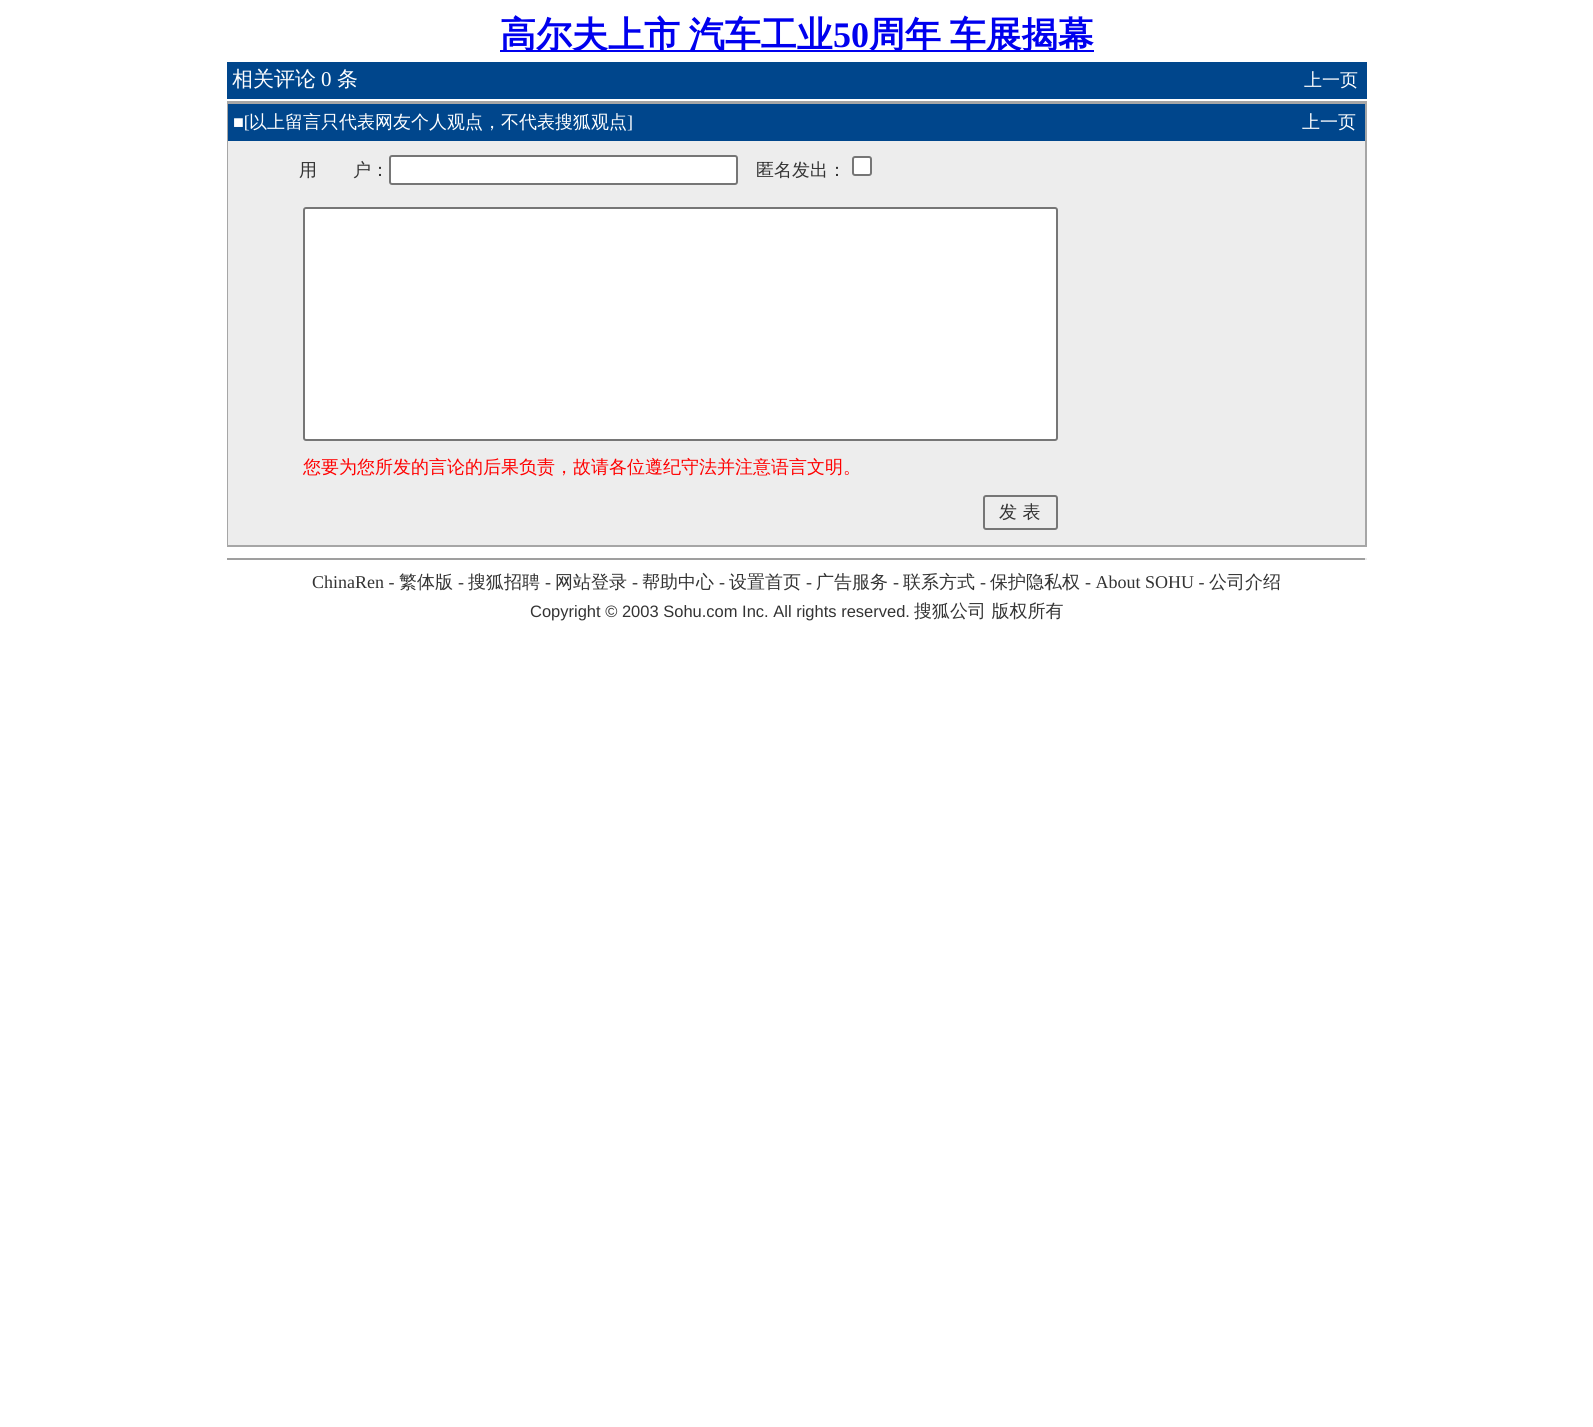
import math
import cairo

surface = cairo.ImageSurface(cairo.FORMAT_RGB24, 1593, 1427)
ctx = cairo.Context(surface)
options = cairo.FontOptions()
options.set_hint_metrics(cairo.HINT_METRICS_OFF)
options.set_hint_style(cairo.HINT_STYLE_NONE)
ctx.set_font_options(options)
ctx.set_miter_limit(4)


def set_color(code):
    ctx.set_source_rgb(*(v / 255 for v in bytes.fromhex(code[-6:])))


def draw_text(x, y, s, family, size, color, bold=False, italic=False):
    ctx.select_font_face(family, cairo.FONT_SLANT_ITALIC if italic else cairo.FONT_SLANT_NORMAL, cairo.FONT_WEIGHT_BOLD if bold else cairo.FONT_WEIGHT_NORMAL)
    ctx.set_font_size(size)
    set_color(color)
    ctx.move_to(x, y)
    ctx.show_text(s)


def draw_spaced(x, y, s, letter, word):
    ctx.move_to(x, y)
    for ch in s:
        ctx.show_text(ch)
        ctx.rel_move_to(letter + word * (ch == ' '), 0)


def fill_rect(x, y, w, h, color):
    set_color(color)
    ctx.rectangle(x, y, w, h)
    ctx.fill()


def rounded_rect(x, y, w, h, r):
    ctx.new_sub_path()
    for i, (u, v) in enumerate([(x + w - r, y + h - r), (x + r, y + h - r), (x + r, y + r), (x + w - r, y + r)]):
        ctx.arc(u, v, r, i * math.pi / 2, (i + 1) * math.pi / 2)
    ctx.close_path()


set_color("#ffffff")
ctx.paint()
fill_rect(500, 50, 594, 2, "#0000ee")
ctx.select_font_face("WenQuanYi Zen Hei", cairo.FONT_SLANT_NORMAL, cairo.FONT_WEIGHT_BOLD)
ctx.set_font_size(36)
draw_spaced(500, 47, "高尔夫上市 汽车工业", 0, -2)
draw_text(833, 47, "50", "Liberation Serif", 36, "#0000ee", bold=True)
ctx.select_font_face("WenQuanYi Zen Hei", cairo.FONT_SLANT_NORMAL, cairo.FONT_WEIGHT_BOLD)
draw_spaced(869, 47, "周年 车展揭幕", 0, -2)
fill_rect(227, 62, 1140, 37, "#00468c")
draw_text(232, 86, "相关评论", "WenQuanYi Zen Hei Medium", 21, "#ffffff")
draw_text(321, 86, "0", "Liberation Serif", 21, "#ffffff")
draw_text(337, 86, "条", "WenQuanYi Zen Hei Medium", 21, "#ffffff")
draw_text(1304, 86, "上一页", "WenQuanYi Zen Hei Medium", 18, "#ffffff")
fill_rect(227, 101, 1140, 3, "#a6a6a6")
fill_rect(227, 104, 1, 441, "#a6a6a6")
fill_rect(228, 104, 1137, 37, "#00468c")
draw_text(233, 128, "■[", "Liberation Serif", 18, "#ffffff")
draw_text(249, 128, "以上留言只代表网友个人观点，不代表搜狐观点", "WenQuanYi Zen Hei Medium", 18, "#ffffff")
draw_text(627, 128, "]", "Liberation Serif", 18, "#ffffff")
draw_text(1302, 128, "上一页", "WenQuanYi Zen Hei Medium", 18, "#ffffff")
fill_rect(228, 141, 1137, 404, "#ededed")
draw_text(299, 176, "用　　户：", "WenQuanYi Zen Hei Medium", 18, "#333333")
set_color("#ffffff")
rounded_rect(390, 156, 347, 28, 2)
ctx.fill_preserve()
set_color("#767676")
ctx.stroke()
draw_text(756, 176, "匿名发出：", "WenQuanYi Zen Hei Medium", 18, "#333333")
set_color("#ffffff")
rounded_rect(853, 157, 18, 18, 2)
ctx.fill_preserve()
set_color("#767676")
ctx.stroke()
set_color("#ffffff")
rounded_rect(304, 208, 753, 232, 2)
ctx.fill_preserve()
set_color("#767676")
ctx.stroke()
draw_text(303, 473, "您要为您所发的言论的后果负责，故请各位遵纪守法并注意语言文明。", "WenQuanYi Zen Hei Medium", 18, "#ff0000")
rounded_rect(984, 496, 73, 33, 2)
set_color("#767676")
ctx.stroke()
draw_text(999, 518, "发 表", "WenQuanYi Zen Hei Medium", 18, "#333333")
fill_rect(1365, 104, 2, 441, "#a6a6a6")
fill_rect(227, 545, 1140, 2, "#a6a6a6")
fill_rect(227, 558, 1140, 2, "#9f9f9f")
fill_rect(1365, 558, 2, 2, "#eeeeee")
draw_text(312, 588, "ChinaRen -", "Liberation Serif", 18, "#333333")
draw_text(399, 588, "繁体版", "WenQuanYi Zen Hei Medium", 18, "#333333")
draw_text(458, 588, "-", "Liberation Serif", 18, "#333333")
draw_text(468, 588, "搜狐招聘", "WenQuanYi Zen Hei Medium", 18, "#333333")
draw_text(545, 588, "-", "Liberation Serif", 18, "#333333")
draw_text(555, 588, "网站登录", "WenQuanYi Zen Hei Medium", 18, "#333333")
draw_text(632, 588, "-", "Liberation Serif", 18, "#333333")
draw_text(642, 588, "帮助中心", "WenQuanYi Zen Hei Medium", 18, "#333333")
draw_text(719, 588, "-", "Liberation Serif", 18, "#333333")
draw_text(729, 588, "设置首页", "WenQuanYi Zen Hei Medium", 18, "#333333")
draw_text(806, 588, "-", "Liberation Serif", 18, "#333333")
draw_text(816, 588, "广告服务", "WenQuanYi Zen Hei Medium", 18, "#333333")
draw_text(893, 588, "-", "Liberation Serif", 18, "#333333")
draw_text(903, 588, "联系方式", "WenQuanYi Zen Hei Medium", 18, "#333333")
draw_text(980, 588, "-", "Liberation Serif", 18, "#333333")
draw_text(990, 588, "保护隐私权", "WenQuanYi Zen Hei Medium", 18, "#333333")
draw_text(1085, 588, "- About SOHU -", "Liberation Serif", 18, "#333333")
draw_text(1209, 588, "公司介绍", "WenQuanYi Zen Hei Medium", 18, "#333333")
draw_text(530, 617, "Copyright © 2003 Sohu.com Inc. All rights reserved.", "Liberation Sans", 16.5, "#333333")
draw_text(914, 617, "搜狐公司 版权所有", "WenQuanYi Zen Hei Medium", 18, "#333333")
surface.write_to_png("output.png")
